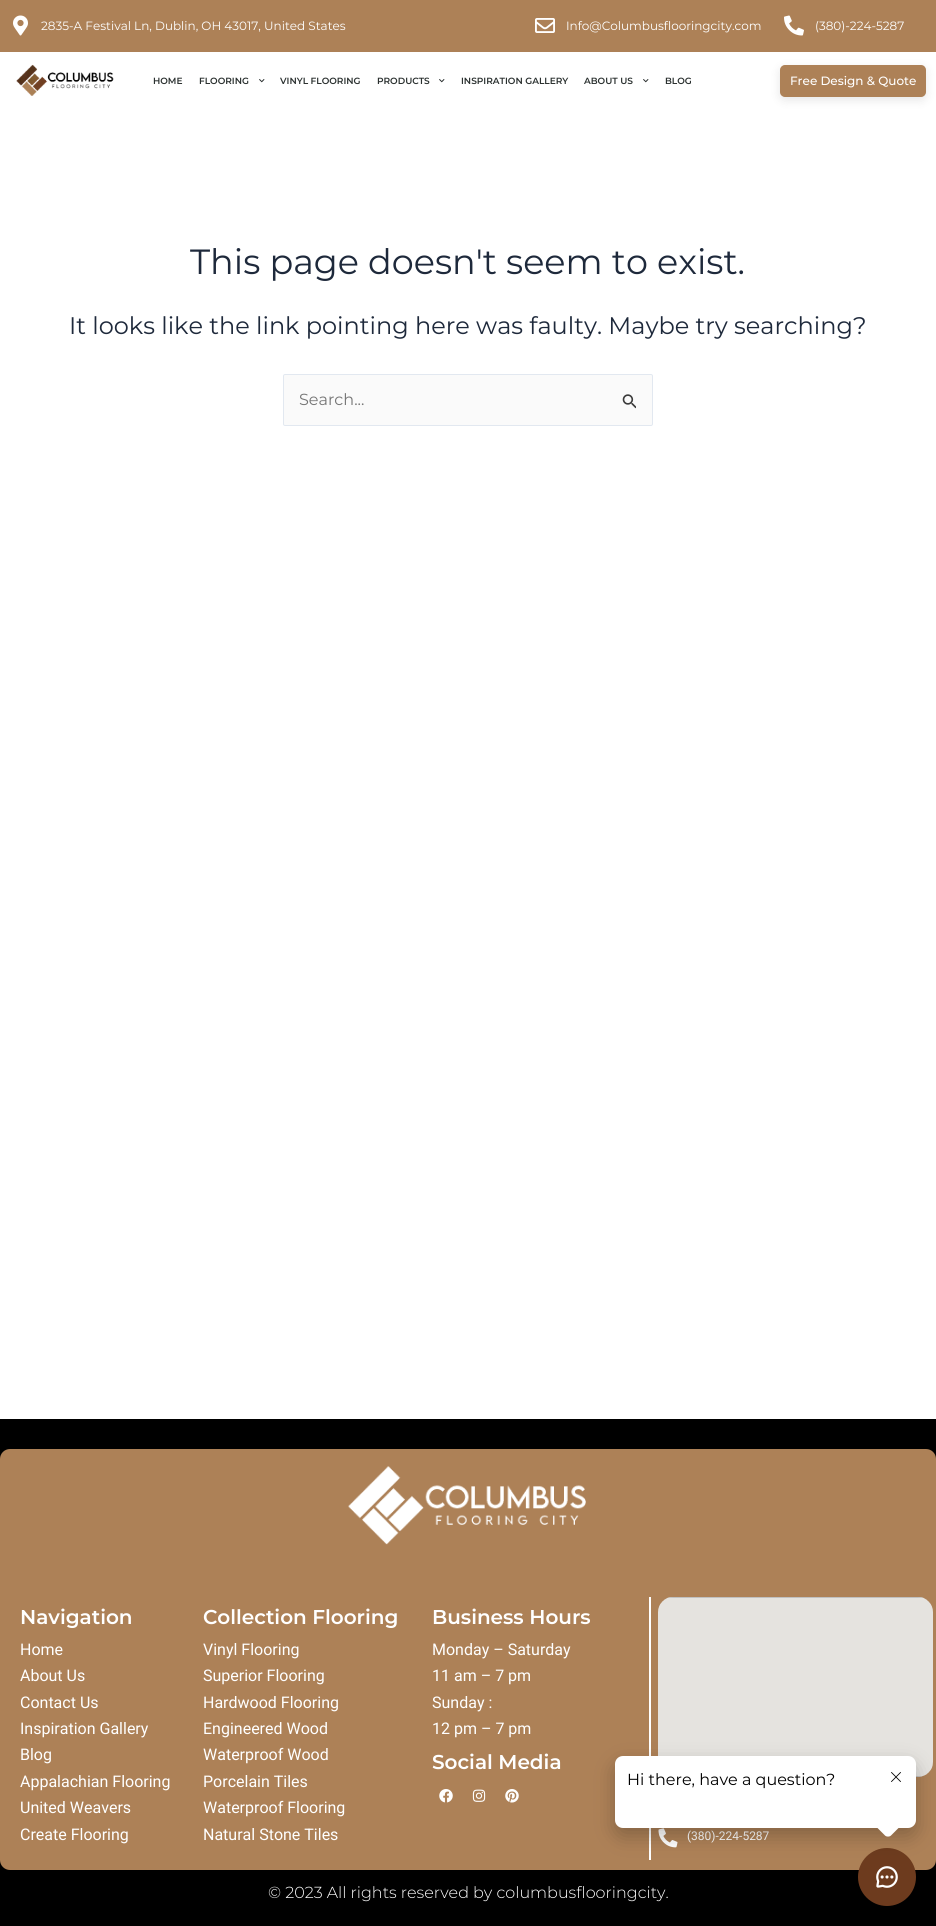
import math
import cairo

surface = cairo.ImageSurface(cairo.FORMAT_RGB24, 936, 1926)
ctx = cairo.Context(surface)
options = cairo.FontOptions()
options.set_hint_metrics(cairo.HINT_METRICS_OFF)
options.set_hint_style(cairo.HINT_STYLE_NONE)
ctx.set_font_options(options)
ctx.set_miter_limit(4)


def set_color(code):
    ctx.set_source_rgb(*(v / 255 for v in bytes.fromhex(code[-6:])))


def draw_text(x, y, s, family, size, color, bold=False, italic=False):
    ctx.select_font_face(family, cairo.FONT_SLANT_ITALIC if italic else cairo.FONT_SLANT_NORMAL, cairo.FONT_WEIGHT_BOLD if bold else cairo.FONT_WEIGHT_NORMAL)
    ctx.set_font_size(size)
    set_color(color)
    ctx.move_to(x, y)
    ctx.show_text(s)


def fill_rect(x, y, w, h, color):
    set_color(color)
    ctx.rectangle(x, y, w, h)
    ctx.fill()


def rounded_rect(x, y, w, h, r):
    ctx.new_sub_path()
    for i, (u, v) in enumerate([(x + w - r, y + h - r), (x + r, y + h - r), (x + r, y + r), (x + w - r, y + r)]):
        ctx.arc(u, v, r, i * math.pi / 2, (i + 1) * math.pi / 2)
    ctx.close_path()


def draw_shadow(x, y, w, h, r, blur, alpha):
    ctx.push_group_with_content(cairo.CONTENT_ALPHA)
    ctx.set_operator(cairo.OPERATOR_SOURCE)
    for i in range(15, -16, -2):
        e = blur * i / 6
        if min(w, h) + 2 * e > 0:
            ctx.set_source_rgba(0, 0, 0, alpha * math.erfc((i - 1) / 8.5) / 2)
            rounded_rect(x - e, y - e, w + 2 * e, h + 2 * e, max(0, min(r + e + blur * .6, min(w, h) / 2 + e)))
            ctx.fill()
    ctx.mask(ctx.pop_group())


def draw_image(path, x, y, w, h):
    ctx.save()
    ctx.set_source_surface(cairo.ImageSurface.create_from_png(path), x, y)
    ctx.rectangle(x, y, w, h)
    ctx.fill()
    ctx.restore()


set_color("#ffffff")
ctx.paint()
fill_rect(0, 0, 936, 52, "#ad8157")
draw_image("assets/img1.png", 13, 15, 15, 21)
draw_text(41, 30, "2835-A Festival Ln, Dublin, OH 43017, United States", "Montserrat", 12, "#ffffff")
draw_image("assets/img2.png", 535, 18, 20, 15)
draw_text(566, 30, "Info@Columbusflooringcity.com", "Montserrat", 12, "#ffffff")
draw_image("assets/img3.png", 784, 15, 20, 21)
draw_text(815, 30, "(380)-224-5287", "Montserrat", 12, "#ffffff")
draw_image("assets/img4.png", 16, 64, 98, 32)
draw_text(153, 84, "HOME", "Montserrat SemiBold", 9, "#2a302f")
draw_text(199, 84, "FLOORING", "Montserrat SemiBold", 9, "#2a302f")
draw_image("assets/img5.png", 259, 79, 6, 4)
draw_text(280, 84, "VINYL FLOORING", "Montserrat SemiBold", 9, "#2a302f")
draw_text(377, 84, "PRODUCTS", "Montserrat SemiBold", 9, "#2a302f")
draw_image("assets/img5.png", 439, 79, 6, 4)
draw_text(461, 84, "INSPIRATION GALLERY", "Montserrat SemiBold", 9, "#2a302f")
draw_text(584, 84, "ABOUT US", "Montserrat SemiBold", 9, "#2a302f")
draw_image("assets/img5.png", 643, 79, 6, 4)
draw_text(665, 84, "BLOG", "Montserrat SemiBold", 9, "#2a302f")
set_color("#000000")
draw_shadow(780, 68, 146, 32, 5, 5, 0.1)
set_color("#ad8157")
rounded_rect(781, 66, 144, 30, 4)
ctx.fill_preserve()
ctx.stroke()
draw_text(790, 85, "Free Design & Quote", "Montserrat Medium", 12, "#ffffff")
draw_text(190, 274, "This page doesn't seem to exist.", "Montserrat", 35, "#1e293b")
draw_text(69, 334, "It looks like the link pointing here was faulty. Maybe try searching?", "Montserrat", 24, "#1e293b")
set_color("#fafafa")
rounded_rect(283.5, 374.5, 369, 51, 1.5)
ctx.fill_preserve()
set_color("#e2e8f0")
ctx.set_line_width(1)
ctx.stroke()
draw_text(299, 405, "Search...", "Montserrat", 16, "#757575")
draw_image("assets/img6.png", 622, 394, 14, 15)
fill_rect(0, 1419, 936, 507, "#000000")
set_color("#ad8157")
rounded_rect(0, 1449, 936, 421, 10)
ctx.fill()
draw_image("assets/img7.png", 348, 1466, 238, 79)
draw_text(20, 1624, "Navigation", "Montserrat SemiBold", 20, "#ffffff")
draw_text(20, 1655, "Home", "Roboto", 16, "#ffffff")
draw_text(20, 1681, "About Us", "Roboto", 16, "#ffffff")
draw_text(20, 1708, "Contact Us", "Roboto", 16, "#ffffff")
draw_text(20, 1734, "Inspiration Gallery", "Roboto", 16, "#ffffff")
draw_text(20, 1760, "Blog", "Roboto", 16, "#ffffff")
draw_text(20, 1787, "Appalachian Flooring", "Roboto", 16, "#ffffff")
draw_text(20, 1813, "United Weavers", "Roboto", 16, "#ffffff")
draw_text(20, 1840, "Create Flooring", "Roboto", 16, "#ffffff")
draw_text(203, 1624, "Collection Flooring", "Montserrat SemiBold", 20, "#ffffff")
draw_text(203, 1655, "Vinyl Flooring", "Roboto", 16, "#ffffff")
draw_text(203, 1681, "Superior Flooring", "Roboto", 16, "#ffffff")
draw_text(203, 1708, "Hardwood Flooring", "Roboto", 16, "#ffffff")
draw_text(203, 1734, "Engineered Wood", "Roboto", 16, "#ffffff")
draw_text(203, 1760, "Waterproof Wood", "Roboto", 16, "#ffffff")
draw_text(203, 1787, "Porcelain Tiles", "Roboto", 16, "#ffffff")
draw_text(203, 1813, "Waterproof Flooring", "Roboto", 16, "#ffffff")
draw_text(203, 1840, "Natural Stone Tiles", "Roboto", 16, "#ffffff")
fill_rect(649, 1597, 2, 263, "#ffffff")
draw_text(432, 1624, "Business Hours", "Montserrat SemiBold", 20, "#ffffff")
draw_text(432, 1655, "Monday – Saturday", "Roboto", 16, "#ffffff")
draw_text(432, 1681, "11 am – 7 pm", "Roboto", 16, "#ffffff")
draw_text(432, 1708, "Sunday :", "Roboto", 16, "#ffffff")
draw_text(432, 1734, "12 pm – 7 pm", "Roboto", 16, "#ffffff")
draw_text(432, 1769, "Social Media", "Montserrat SemiBold", 20, "#ffffff")
draw_image("assets/img8.png", 439, 1789, 14, 14)
draw_image("assets/img9.png", 472, 1789, 14, 13)
draw_image("assets/img10.png", 505, 1789, 14, 14)
draw_image("assets/img11.png", 658, 1597, 275, 180)
draw_image("assets/img12.png", 658, 1828, 20, 20)
draw_text(687, 1840, "(380)-224-5287", "Roboto", 12, "#ffffff")
set_color("#6d3b1e")
ctx.new_path()
ctx.arc(887, 1877, 29, 0, 2 * math.pi)
ctx.fill()
draw_image("assets/img14.png", 876, 1866, 22, 22)
set_color("#000000")
draw_shadow(615, 1764, 301, 72, 8, 10, 0.24)
set_color("#ffffff")
rounded_rect(615, 1756, 301, 72, 8)
ctx.fill()
draw_text(627, 1785, "Hi there, have a question?", "Montserrat", 16, "#000000")
set_color("#ffffff")
ctx.new_path()
ctx.move_to(891, 1812.5)
ctx.line_to(899.5, 1821)
ctx.curve_to(901, 1822.5, 901, 1825.5, 899.5, 1827)
ctx.line_to(891, 1835.5)
ctx.curve_to(889.5, 1837, 886.5, 1837, 885, 1835.5)
ctx.line_to(876.5, 1827)
ctx.curve_to(875, 1825.5, 875, 1822.5, 876.5, 1821)
ctx.line_to(885, 1812.5)
ctx.curve_to(886.5, 1811, 889.5, 1811, 891, 1812.5)
ctx.close_path()
ctx.fill()
draw_image("assets/img13.png", 891, 1772, 10, 10)
draw_text(268, 1898, "© 2023 All rights reserved by columbusflooringcity.", "Montserrat Light", 16, "#ffffff")
surface.write_to_png("output.png")
